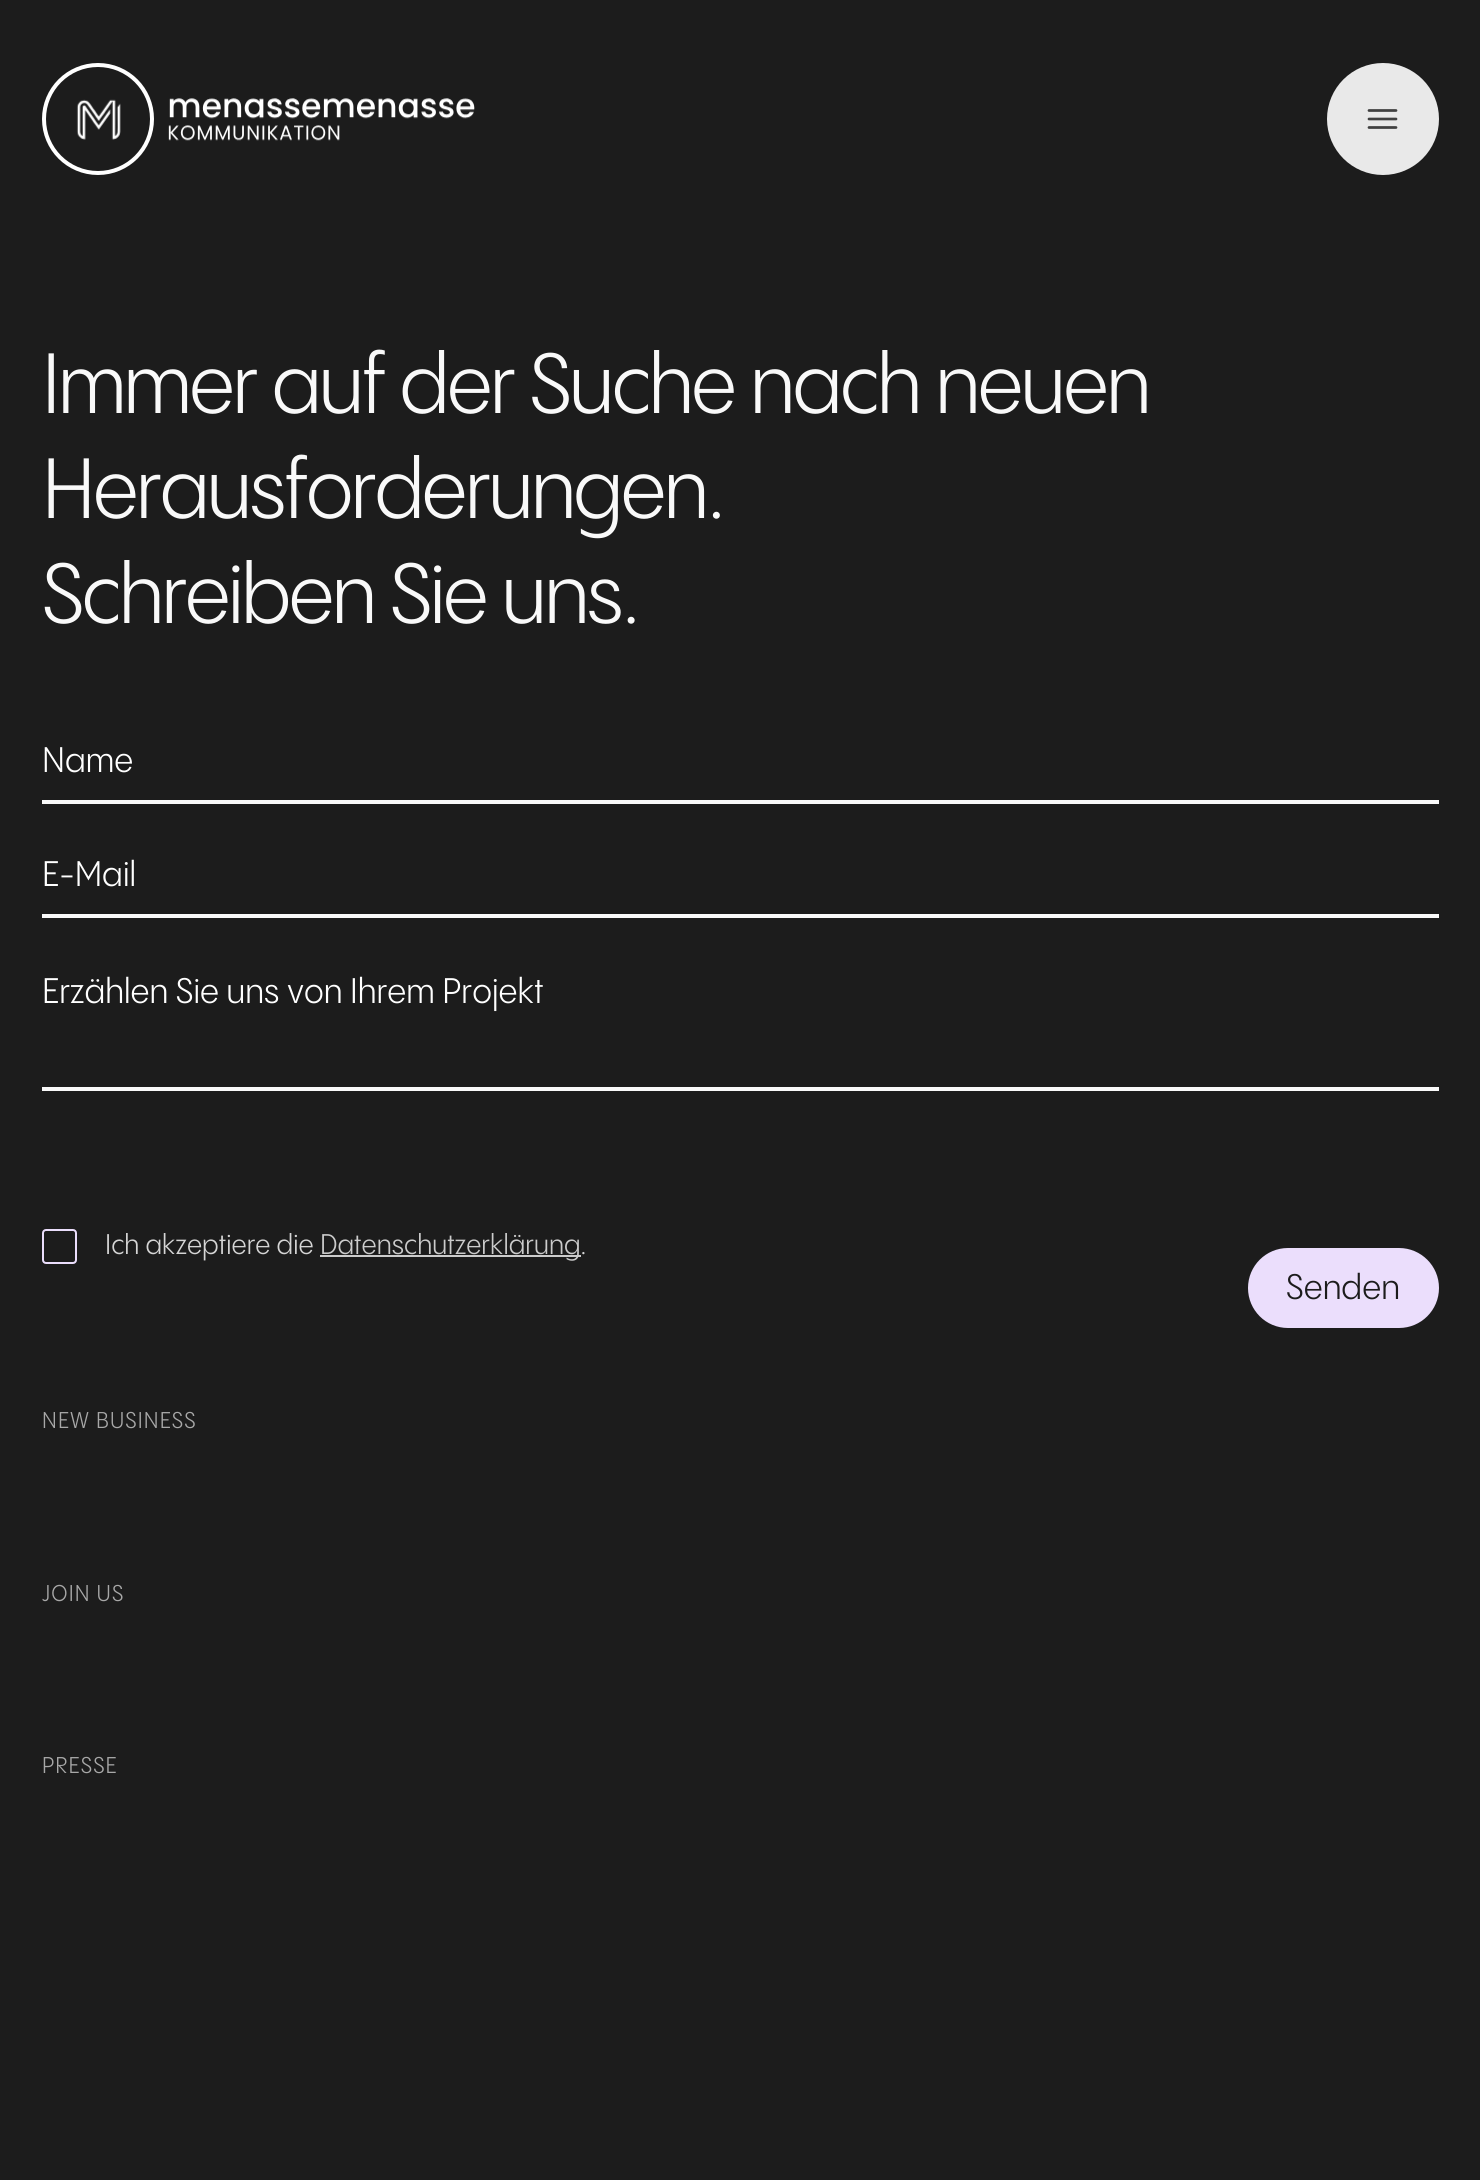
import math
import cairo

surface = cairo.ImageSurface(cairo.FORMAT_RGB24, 1480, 2180)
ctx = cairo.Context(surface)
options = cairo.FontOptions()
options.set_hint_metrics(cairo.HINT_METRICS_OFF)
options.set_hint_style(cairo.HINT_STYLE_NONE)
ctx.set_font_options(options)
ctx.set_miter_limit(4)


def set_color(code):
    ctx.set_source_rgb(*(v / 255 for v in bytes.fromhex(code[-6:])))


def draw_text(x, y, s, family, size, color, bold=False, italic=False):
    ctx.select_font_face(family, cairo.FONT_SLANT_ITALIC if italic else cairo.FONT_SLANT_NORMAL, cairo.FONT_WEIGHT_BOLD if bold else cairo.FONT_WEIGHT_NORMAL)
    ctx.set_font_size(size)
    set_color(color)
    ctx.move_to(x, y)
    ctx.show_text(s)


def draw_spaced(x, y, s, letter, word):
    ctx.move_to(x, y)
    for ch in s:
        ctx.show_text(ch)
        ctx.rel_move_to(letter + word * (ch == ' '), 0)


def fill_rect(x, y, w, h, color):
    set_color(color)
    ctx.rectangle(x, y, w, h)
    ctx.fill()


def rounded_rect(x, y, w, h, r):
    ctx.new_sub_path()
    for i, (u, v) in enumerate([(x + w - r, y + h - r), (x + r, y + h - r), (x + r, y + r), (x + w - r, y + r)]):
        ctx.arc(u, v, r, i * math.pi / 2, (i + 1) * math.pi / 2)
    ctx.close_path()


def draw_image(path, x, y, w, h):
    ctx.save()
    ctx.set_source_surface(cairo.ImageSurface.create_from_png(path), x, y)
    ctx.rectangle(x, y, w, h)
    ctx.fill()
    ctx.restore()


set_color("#1c1c1c")
ctx.paint()
ctx.arc(98, 119, 54, 0, 2 * math.pi)
set_color("#ffffff")
ctx.set_line_width(4)
ctx.stroke()
draw_image("assets/img1.png", 76, 99, 45, 41)
draw_image("assets/img2.png", 168, 98, 307, 43)
set_color("#e9e9e9")
ctx.arc(1383, 119, 56, 0, 2 * math.pi)
ctx.fill()
ctx.new_path()
ctx.move_to(1369, 127.5)
ctx.line_to(1396, 127.5)
ctx.move_to(1369, 119)
ctx.line_to(1396, 119)
ctx.move_to(1369, 110.5)
ctx.line_to(1396, 110.5)
set_color("#404040")
ctx.set_line_width(2.7)
ctx.set_line_cap(cairo.LINE_CAP_ROUND)
ctx.stroke()
ctx.select_font_face("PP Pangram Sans")
ctx.set_font_size(84)
set_color("#f9f9f9")
draw_spaced(42, 413, "Immer auf der Suche nach neuen", -2.5, 0)
draw_spaced(42, 518, "Herausforderungen.", -2.5, 0)
draw_spaced(42, 623, "Schreiben Sie uns.", -2.5, 0)
fill_rect(42, 800, 1397, 4, "#f9f9f9")
draw_text(42, 772, "Name", "PP Pangram Sans", 35, "#ffffff")
fill_rect(42, 914, 1397, 4, "#f9f9f9")
draw_text(42, 886, "E-Mail", "PP Pangram Sans", 35, "#ffffff")
fill_rect(42, 1087, 1397, 4, "#f9f9f9")
draw_text(42, 1003, "Erzählen Sie uns von Ihrem Projekt", "PP Pangram Sans", 35, "#ffffff")
rounded_rect(43, 1230, 33, 33, 3)
set_color("#ebdefc")
ctx.set_line_width(2)
ctx.set_line_cap(cairo.LINE_CAP_BUTT)
ctx.stroke()
draw_text(105, 1254, "Ich akzeptiere die", "PP Pangram Sans", 28, "#d5d5d5")
fill_rect(320, 1255, 261, 2, "#cccccc")
draw_text(320, 1254, "Datenschutzerklärung", "PP Pangram Sans", 28, "#cccccc")
draw_text(580, 1254, ".", "PP Pangram Sans", 28, "#d5d5d5")
set_color("#ebdefc")
rounded_rect(1250, 1250, 187, 76, 38)
ctx.fill_preserve()
ctx.set_line_width(4)
ctx.stroke()
draw_text(1286, 1299, "Senden", "PP Pangram Sans", 35, "#1c1c1c")
ctx.set_font_size(22.5)
set_color("#a8a8a8")
draw_spaced(42, 1428, "NEW BUSINESS", 1.1, 0)
draw_spaced(42, 1601, "JOIN US", 1.1, 0)
draw_spaced(42, 1773, "PRESSE", 1.1, 0)
surface.write_to_png("output.png")
